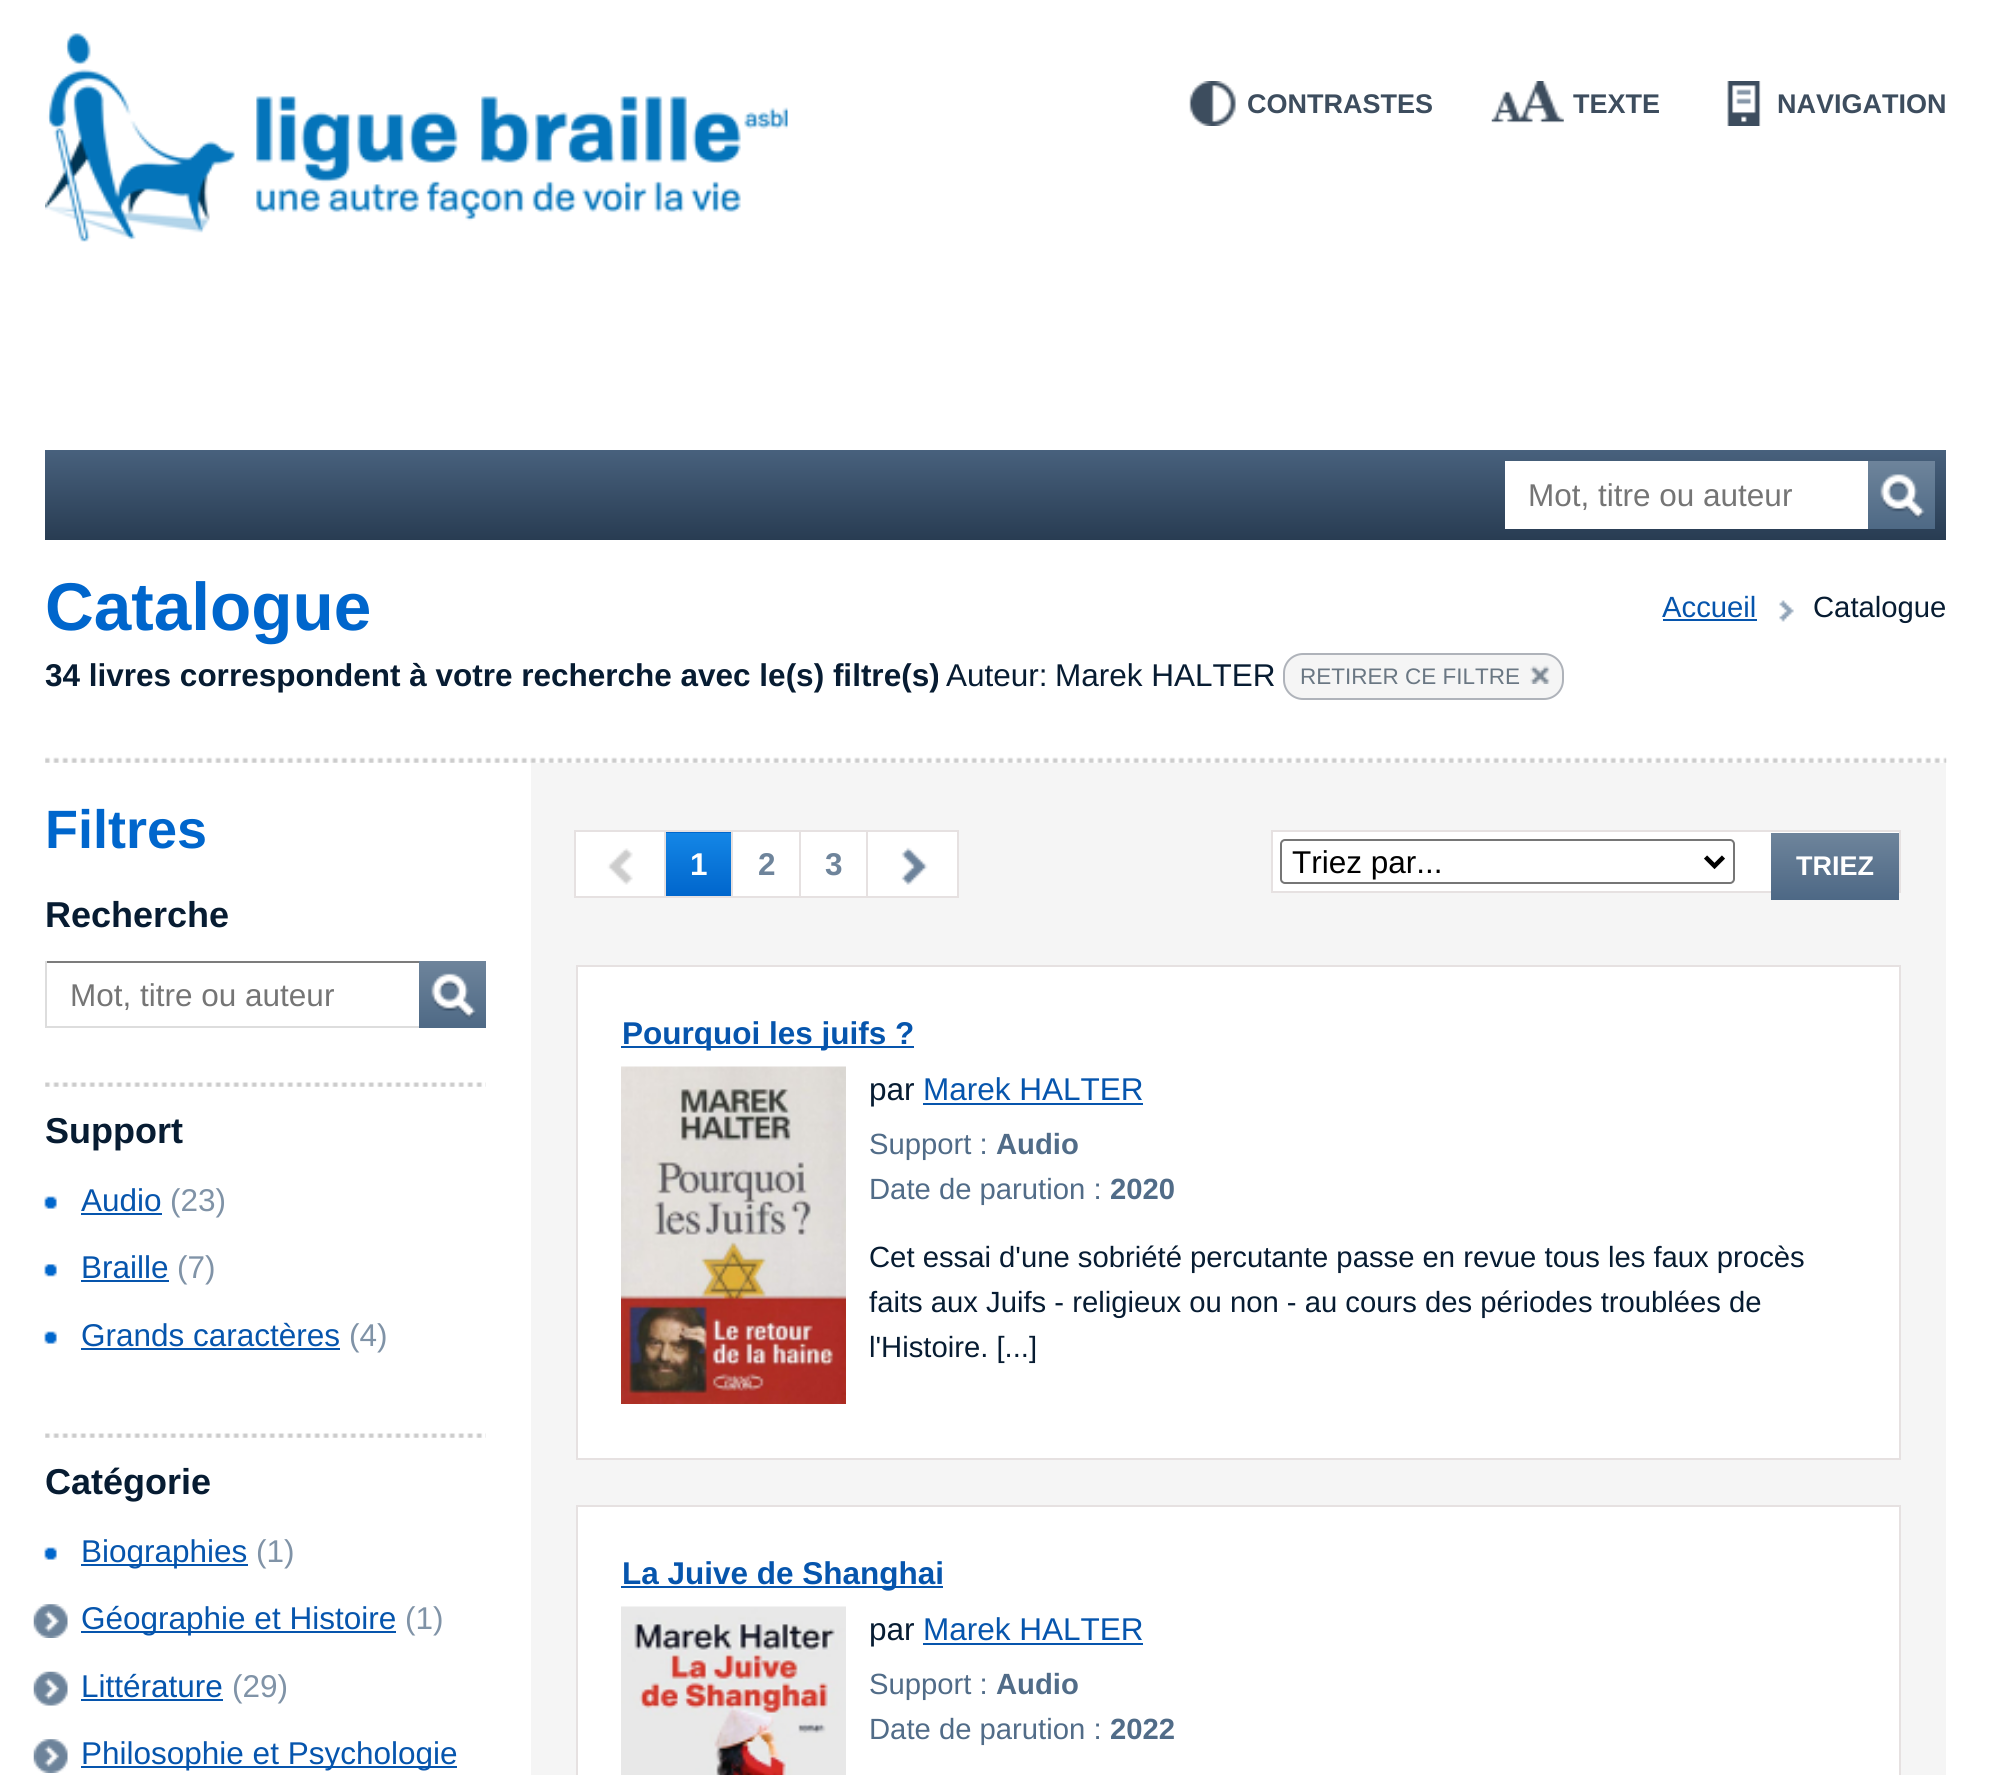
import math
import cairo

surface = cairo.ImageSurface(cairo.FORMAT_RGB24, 1990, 1775)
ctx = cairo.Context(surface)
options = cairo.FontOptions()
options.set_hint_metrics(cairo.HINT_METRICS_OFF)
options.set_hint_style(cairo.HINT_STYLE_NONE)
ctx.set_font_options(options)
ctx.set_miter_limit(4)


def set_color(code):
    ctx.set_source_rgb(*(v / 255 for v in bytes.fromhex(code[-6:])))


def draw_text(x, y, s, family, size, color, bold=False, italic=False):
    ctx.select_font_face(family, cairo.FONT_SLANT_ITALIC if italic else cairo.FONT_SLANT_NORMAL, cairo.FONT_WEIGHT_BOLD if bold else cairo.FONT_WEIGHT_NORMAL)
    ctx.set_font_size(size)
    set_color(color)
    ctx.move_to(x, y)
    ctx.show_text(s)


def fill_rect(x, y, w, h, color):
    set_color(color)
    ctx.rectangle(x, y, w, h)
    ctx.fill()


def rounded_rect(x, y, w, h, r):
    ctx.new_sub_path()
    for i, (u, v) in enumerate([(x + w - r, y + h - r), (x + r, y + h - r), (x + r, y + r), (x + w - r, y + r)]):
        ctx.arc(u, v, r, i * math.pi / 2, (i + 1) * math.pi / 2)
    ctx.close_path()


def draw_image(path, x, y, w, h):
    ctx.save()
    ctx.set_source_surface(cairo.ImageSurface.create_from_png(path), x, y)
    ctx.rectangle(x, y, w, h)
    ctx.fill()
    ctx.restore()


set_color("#ffffff")
ctx.paint()
draw_image("assets/img1.png", 45, 33, 743, 209)
draw_image("assets/img2.png", 1189, 81, 47, 45)
draw_text(1247, 113, "CONTRASTES", "Liberation Sans", 27, "#3d4d5e", bold=True)
draw_image("assets/img3.png", 1491, 81, 73, 42)
draw_text(1573, 113, "TEXTE", "Liberation Sans", 27, "#3d4d5e", bold=True)
draw_image("assets/img4.png", 1727, 81, 34, 45)
draw_text(1777, 113, "NAVIGATION", "Liberation Sans", 27, "#3d4d5e", bold=True)
gradient = cairo.LinearGradient(996, 450, 996, 540)
gradient.add_color_stop_rgba(0, 0.282, 0.38, 0.49, 1)
gradient.add_color_stop_rgba(1, 0.157, 0.235, 0.322, 1)
ctx.set_source(gradient)
ctx.rectangle(45, 450, 1901, 90)
ctx.fill()
fill_rect(1505, 461, 363, 68, "#ffffff")
draw_text(1528, 506, "Mot, titre ou auteur", "Liberation Sans", 31.5, "#757575")
gradient = cairo.LinearGradient(1901, 461, 1901, 529)
gradient.add_color_stop_rgba(0, 0.431, 0.518, 0.608, 1)
gradient.add_color_stop_rgba(1, 0.306, 0.412, 0.522, 1)
ctx.set_source(gradient)
ctx.rectangle(1868, 461, 67, 68)
ctx.fill()
draw_image("assets/img5.png", 1880, 474, 45, 46)
draw_image("assets/img6.png", 45, 757, 1902, 6)
draw_text(45, 630, "Catalogue", "Liberation Sans", 67.5, "#0066cc", bold=True)
draw_text(1662, 617, "Accueil", "Liberation Sans", 29.25, "#0655ad")
fill_rect(1663, 619, 94, 2, "#0655ad")
draw_image("assets/img7.png", 1779, 600, 15, 22)
draw_text(1813, 617, "Catalogue", "Liberation Sans", 29.25, "#071c32")
draw_text(45, 686, "34 livres correspondent à votre recherche avec le(s) filtre(s)", "Liberation Sans", 31.5, "#071c32", bold=True)
draw_text(946, 686, "Auteur:", "Liberation Sans", 31.5, "#071c32")
draw_text(1055, 686, "Marek HALTER", "Liberation Sans", 31.5, "#071c32")
set_color("#f5f5f5")
rounded_rect(1284, 654, 279, 45, 19)
ctx.fill_preserve()
set_color("#afb3ba")
ctx.stroke()
draw_text(1300, 684, "RETIRER CE FILTRE", "Liberation Sans", 22.5, "#6a7783")
draw_image("assets/img8.png", 1530, 665, 20, 19)
draw_text(45, 848, "Filtres", "Liberation Sans", 54, "#0066cc", bold=True)
draw_text(45, 927, "Recherche", "Liberation Sans", 36, "#071c32", bold=True)
fill_rect(45, 961, 374, 2, "#7c7c7c")
fill_rect(45, 1026, 374, 2, "#dddddd")
fill_rect(45, 961, 2, 67, "#dddddd")
draw_text(70, 1006, "Mot, titre ou auteur", "Liberation Sans", 31.5, "#757575")
gradient = cairo.LinearGradient(452, 961, 452, 1028)
gradient.add_color_stop_rgba(0, 0.431, 0.518, 0.608, 1)
gradient.add_color_stop_rgba(1, 0.306, 0.412, 0.522, 1)
ctx.set_source(gradient)
ctx.rectangle(419, 961, 67, 67)
ctx.fill()
draw_image("assets/img9.png", 431, 973, 45, 47)
draw_image("assets/img10.png", 45, 1082, 441, 5)
draw_text(45, 1143, "Support", "Liberation Sans", 36, "#071c32", bold=True)
draw_image("assets/img11.png", 44, 1196, 13, 13)
draw_text(81, 1211, "Audio", "Liberation Sans", 31.5, "#0655ad")
fill_rect(81, 1213, 81, 2, "#0655ad")
draw_text(170, 1211, "(23)", "Liberation Sans", 31.5, "#8093a7")
draw_image("assets/img12.png", 44, 1264, 13, 13)
draw_text(81, 1278, "Braille", "Liberation Sans", 31.5, "#0655ad")
fill_rect(81, 1280, 88, 2, "#0655ad")
draw_text(177, 1278, "(7)", "Liberation Sans", 31.5, "#8093a7")
draw_image("assets/img11.png", 44, 1331, 13, 13)
draw_text(81, 1346, "Grands caractères", "Liberation Sans", 31.5, "#0655ad")
fill_rect(81, 1348, 259, 2, "#0655ad")
draw_text(349, 1346, "(4)", "Liberation Sans", 31.5, "#8093a7")
draw_image("assets/img10.png", 45, 1433, 441, 5)
draw_text(45, 1494, "Catégorie", "Liberation Sans", 36, "#071c32", bold=True)
draw_image("assets/img11.png", 44, 1547, 13, 13)
fill_rect(81, 1564, 167, 2, "#0655ad")
draw_text(81, 1562, "Biographies", "Liberation Sans", 31.5, "#0655ad")
draw_text(256, 1562, "(1)", "Liberation Sans", 31.5, "#8093a7")
draw_image("assets/img13.png", 33, 1604, 35, 34)
fill_rect(81, 1631, 315, 2, "#0655ad")
draw_text(81, 1629, "Géographie et Histoire", "Liberation Sans", 31.5, "#0655ad")
draw_text(405, 1629, "(1)", "Liberation Sans", 31.5, "#8093a7")
draw_image("assets/img14.png", 33, 1671, 35, 35)
draw_text(81, 1697, "Littérature", "Liberation Sans", 31.5, "#0655ad")
fill_rect(81, 1699, 142, 2, "#0655ad")
draw_text(232, 1697, "(29)", "Liberation Sans", 31.5, "#8093a7")
draw_image("assets/img13.png", 33, 1739, 35, 34)
fill_rect(81, 1766, 376, 2, "#0655ad")
draw_text(81, 1764, "Philosophie et Psychologie", "Liberation Sans", 31.5, "#0655ad")
fill_rect(531, 763, 1415, 1012, "#f5f5f5")
gradient = cairo.LinearGradient(699, 770, 699, 833)
gradient.add_color_stop_rgba(0, 0.078, 0.525, 0.902, 1)
gradient.add_color_stop_rgba(1, 0, 0.4, 0.8, 1)
ctx.set_source(gradient)
ctx.rectangle(664, 832, 70, 1)
ctx.fill()
gradient = cairo.LinearGradient(699, 833, 699, 896)
gradient.add_color_stop_rgba(0, 0.078, 0.525, 0.902, 1)
gradient.add_color_stop_rgba(1, 0, 0.4, 0.8, 1)
ctx.set_source(gradient)
ctx.rectangle(666, 833, 65, 63)
ctx.fill()
ctx.rectangle(665, 831, 68, 66)
set_color("#e6e1e1")
ctx.stroke()
set_color("#ffffff")
ctx.rectangle(575, 831, 90, 66)
ctx.fill_preserve()
set_color("#e6e1e1")
ctx.stroke()
draw_image("assets/img15.png", 607, 848, 26, 37)
draw_text(690, 875, "1", "Liberation Sans", 31.5, "#ffffff", bold=True)
ctx.rectangle(732, 831, 68, 66)
ctx.fill_preserve()
set_color("#e6e1e1")
ctx.stroke()
draw_text(758, 875, "2", "Liberation Sans", 31.5, "#6e849b", bold=True)
fill_rect(801, 832, 65, 64, "#ffffff")
ctx.rectangle(800, 831, 68, 66)
set_color("#e6e1e1")
ctx.stroke()
draw_text(825, 875, "3", "Liberation Sans", 31.5, "#6e849b", bold=True)
set_color("#ffffff")
ctx.rectangle(867, 831, 91, 66)
ctx.fill_preserve()
set_color("#e6e1e1")
ctx.stroke()
draw_image("assets/img16.png", 901, 847, 27, 38)
set_color("#ffffff")
ctx.rectangle(1272, 831, 628, 61)
ctx.fill_preserve()
set_color("#e6e1e1")
ctx.stroke()
rounded_rect(1281, 840, 453, 43, 4)
set_color("#767676")
ctx.stroke()
ctx.new_path()
ctx.move_to(1705.5, 857)
ctx.line_to(1714.5, 866)
ctx.line_to(1723.5, 857)
set_color("#000000")
ctx.set_line_width(4.5)
ctx.stroke()
draw_text(1292, 873, "Triez par...", "Liberation Sans", 31.5, "#000000")
gradient = cairo.LinearGradient(1835, 833, 1835, 900)
gradient.add_color_stop_rgba(0, 0.431, 0.518, 0.608, 1)
gradient.add_color_stop_rgba(1, 0.302, 0.408, 0.522, 1)
ctx.set_source(gradient)
ctx.rectangle(1771, 833, 128, 67)
ctx.fill()
draw_text(1796, 875, "TRIEZ", "Liberation Sans", 27, "#ffffff", bold=True)
ctx.rectangle(577, 966, 1323, 493)
ctx.fill_preserve()
set_color("#e6e1e1")
ctx.set_line_width(2)
ctx.stroke()
fill_rect(621, 1046, 293, 2, "#0655ad")
draw_text(622, 1044, "Pourquoi les juifs ?", "Liberation Sans", 31.5, "#0655ad", bold=True)
draw_image("assets/img17.png", 621, 1066, 225, 338)
draw_text(869, 1100, "par", "Liberation Sans", 31.5, "#071c32")
draw_text(923, 1100, "Marek HALTER", "Liberation Sans", 31.5, "#0655ad")
fill_rect(923, 1103, 220, 2, "#0655ad")
draw_text(869, 1154, "Support :", "Liberation Sans", 29.25, "#516c88")
draw_text(996, 1154, "Audio", "Liberation Sans", 29.25, "#516c88", bold=True)
draw_text(869, 1199, "Date de parution :", "Liberation Sans", 29.25, "#516c88")
draw_text(1110, 1199, "2020", "Liberation Sans", 29.25, "#516c88", bold=True)
draw_text(869, 1267, "Cet essai d'une sobriété percutante passe en revue tous les faux procès", "Liberation Sans", 29.25, "#071c32")
draw_text(869, 1312, "faits aux Juifs - religieux ou non - au cours des périodes troublées de", "Liberation Sans", 29.25, "#071c32")
draw_text(869, 1357, "l'Histoire. [...]", "Liberation Sans", 29.25, "#071c32")
set_color("#ffffff")
ctx.rectangle(577, 1506, 1323, 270)
ctx.fill_preserve()
set_color("#e6e1e1")
ctx.stroke()
fill_rect(621, 1586, 322, 2, "#0655ad")
draw_text(622, 1584, "La Juive de Shanghai", "Liberation Sans", 31.5, "#0655ad", bold=True)
draw_image("assets/img18.png", 621, 1606, 225, 169)
draw_text(869, 1640, "par", "Liberation Sans", 31.5, "#071c32")
draw_text(923, 1640, "Marek HALTER", "Liberation Sans", 31.5, "#0655ad")
fill_rect(923, 1643, 220, 2, "#0655ad")
draw_text(869, 1694, "Support :", "Liberation Sans", 29.25, "#516c88")
draw_text(996, 1694, "Audio", "Liberation Sans", 29.25, "#516c88", bold=True)
draw_text(869, 1739, "Date de parution :", "Liberation Sans", 29.25, "#516c88")
draw_text(1110, 1739, "2022", "Liberation Sans", 29.25, "#516c88", bold=True)
surface.write_to_png("output.png")
